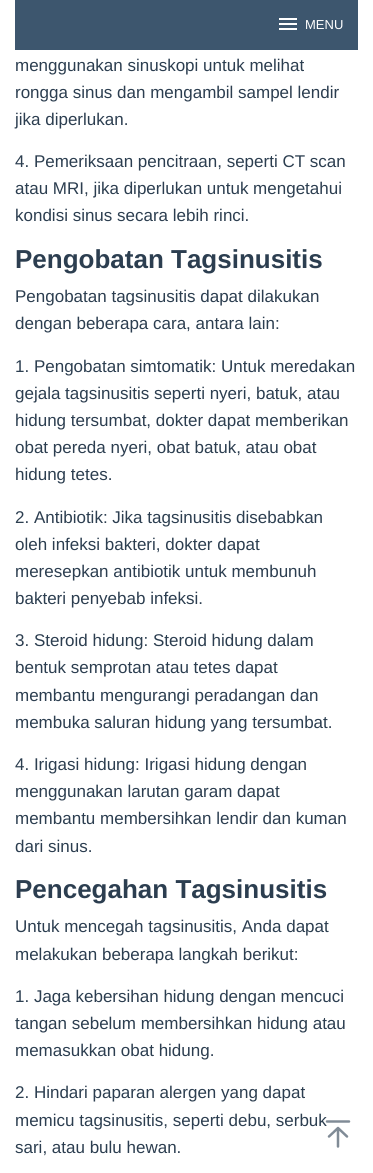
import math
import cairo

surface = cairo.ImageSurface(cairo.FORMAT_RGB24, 373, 1173)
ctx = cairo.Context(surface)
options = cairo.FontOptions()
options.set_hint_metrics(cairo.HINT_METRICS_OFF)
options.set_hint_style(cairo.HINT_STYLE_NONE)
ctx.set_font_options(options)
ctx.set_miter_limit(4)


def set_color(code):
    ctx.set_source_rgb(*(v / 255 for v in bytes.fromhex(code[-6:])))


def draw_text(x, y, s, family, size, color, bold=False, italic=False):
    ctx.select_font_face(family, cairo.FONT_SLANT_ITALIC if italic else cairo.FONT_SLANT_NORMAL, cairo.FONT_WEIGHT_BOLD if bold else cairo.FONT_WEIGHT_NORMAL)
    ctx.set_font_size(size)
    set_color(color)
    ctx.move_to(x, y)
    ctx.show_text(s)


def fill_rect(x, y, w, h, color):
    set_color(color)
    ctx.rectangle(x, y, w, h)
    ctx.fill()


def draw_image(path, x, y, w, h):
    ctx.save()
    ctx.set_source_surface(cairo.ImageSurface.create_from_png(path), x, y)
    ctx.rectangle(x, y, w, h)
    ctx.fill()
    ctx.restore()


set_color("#ffffff")
ctx.paint()
fill_rect(15, 0, 343, 50, "#3d566e")
draw_image("assets/img1.png", 279, 18, 18, 12)
draw_text(305, 29, "MENU", "Liberation Sans", 13, "#ffffff")
draw_text(15, 71, "menggunakan sinuskopi untuk melihat", "Liberation Sans", 17, "#2c3e50")
draw_text(15, 98, "rongga sinus dan mengambil sampel lendir", "Liberation Sans", 17, "#2c3e50")
draw_text(15, 125, "jika diperlukan.", "Liberation Sans", 17, "#2c3e50")
draw_text(15, 167, "4. Pemeriksaan pencitraan, seperti CT scan", "Liberation Sans", 17, "#2c3e50")
draw_text(15, 194, "atau MRI, jika diperlukan untuk mengetahui", "Liberation Sans", 17, "#2c3e50")
draw_text(15, 221, "kondisi sinus secara lebih rinci.", "Liberation Sans", 17, "#2c3e50")
draw_text(15, 268, "Pengobatan Tagsinusitis", "Liberation Sans", 26, "#2c3e50", bold=True)
draw_text(15, 302, "Pengobatan tagsinusitis dapat dilakukan", "Liberation Sans", 17, "#2c3e50")
draw_text(15, 329, "dengan beberapa cara, antara lain:", "Liberation Sans", 17, "#2c3e50")
draw_text(15, 372, "1. Pengobatan simtomatik: Untuk meredakan", "Liberation Sans", 17, "#2c3e50")
draw_text(15, 399, "gejala tagsinusitis seperti nyeri, batuk, atau", "Liberation Sans", 17, "#2c3e50")
draw_text(15, 426, "hidung tersumbat, dokter dapat memberikan", "Liberation Sans", 17, "#2c3e50")
draw_text(15, 453, "obat pereda nyeri, obat batuk, atau obat", "Liberation Sans", 17, "#2c3e50")
draw_text(15, 480, "hidung tetes.", "Liberation Sans", 17, "#2c3e50")
draw_text(15, 523, "2. Antibiotik: Jika tagsinusitis disebabkan", "Liberation Sans", 17, "#2c3e50")
draw_text(15, 550, "oleh infeksi bakteri, dokter dapat", "Liberation Sans", 17, "#2c3e50")
draw_text(15, 577, "meresepkan antibiotik untuk membunuh", "Liberation Sans", 17, "#2c3e50")
draw_text(15, 604, "bakteri penyebab infeksi.", "Liberation Sans", 17, "#2c3e50")
draw_text(15, 646, "3. Steroid hidung: Steroid hidung dalam", "Liberation Sans", 17, "#2c3e50")
draw_text(15, 673, "bentuk semprotan atau tetes dapat", "Liberation Sans", 17, "#2c3e50")
draw_text(15, 701, "membantu mengurangi peradangan dan", "Liberation Sans", 17, "#2c3e50")
draw_text(15, 728, "membuka saluran hidung yang tersumbat.", "Liberation Sans", 17, "#2c3e50")
draw_text(15, 770, "4. Irigasi hidung: Irigasi hidung dengan", "Liberation Sans", 17, "#2c3e50")
draw_text(15, 797, "menggunakan larutan garam dapat", "Liberation Sans", 17, "#2c3e50")
draw_text(15, 824, "membantu membersihkan lendir dan kuman", "Liberation Sans", 17, "#2c3e50")
draw_text(15, 852, "dari sinus.", "Liberation Sans", 17, "#2c3e50")
draw_text(15, 898, "Pencegahan Tagsinusitis", "Liberation Sans", 26, "#2c3e50", bold=True)
draw_text(15, 932, "Untuk mencegah tagsinusitis, Anda dapat", "Liberation Sans", 17, "#2c3e50")
draw_text(15, 960, "melakukan beberapa langkah berikut:", "Liberation Sans", 17, "#2c3e50")
draw_text(15, 1002, "1. Jaga kebersihan hidung dengan mencuci", "Liberation Sans", 17, "#2c3e50")
draw_text(15, 1029, "tangan sebelum membersihkan hidung atau", "Liberation Sans", 17, "#2c3e50")
draw_text(15, 1056, "memasukkan obat hidung.", "Liberation Sans", 17, "#2c3e50")
draw_text(15, 1098, "2. Hindari paparan alergen yang dapat", "Liberation Sans", 17, "#2c3e50")
draw_text(15, 1126, "memicu tagsinusitis, seperti debu, serbuk", "Liberation Sans", 17, "#2c3e50")
draw_text(15, 1153, "sari, atau bulu hewan.", "Liberation Sans", 17, "#2c3e50")
ctx.new_path()
ctx.move_to(338, 1146.5)
ctx.line_to(338, 1128)
ctx.move_to(329, 1136.5)
ctx.line_to(338, 1128)
ctx.line_to(347, 1136.5)
ctx.move_to(327, 1121.5)
ctx.line_to(349, 1121.5)
set_color("#808b96")
ctx.set_line_width(2.5)
ctx.set_line_cap(cairo.LINE_CAP_ROUND)
ctx.set_line_join(cairo.LINE_JOIN_ROUND)
ctx.stroke()
surface.write_to_png("output.png")
